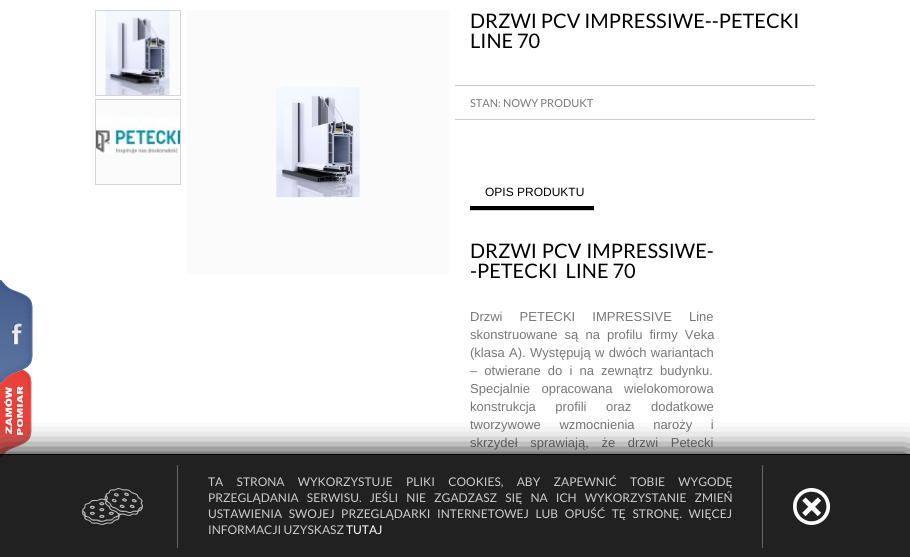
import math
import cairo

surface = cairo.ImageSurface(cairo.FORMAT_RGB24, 910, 557)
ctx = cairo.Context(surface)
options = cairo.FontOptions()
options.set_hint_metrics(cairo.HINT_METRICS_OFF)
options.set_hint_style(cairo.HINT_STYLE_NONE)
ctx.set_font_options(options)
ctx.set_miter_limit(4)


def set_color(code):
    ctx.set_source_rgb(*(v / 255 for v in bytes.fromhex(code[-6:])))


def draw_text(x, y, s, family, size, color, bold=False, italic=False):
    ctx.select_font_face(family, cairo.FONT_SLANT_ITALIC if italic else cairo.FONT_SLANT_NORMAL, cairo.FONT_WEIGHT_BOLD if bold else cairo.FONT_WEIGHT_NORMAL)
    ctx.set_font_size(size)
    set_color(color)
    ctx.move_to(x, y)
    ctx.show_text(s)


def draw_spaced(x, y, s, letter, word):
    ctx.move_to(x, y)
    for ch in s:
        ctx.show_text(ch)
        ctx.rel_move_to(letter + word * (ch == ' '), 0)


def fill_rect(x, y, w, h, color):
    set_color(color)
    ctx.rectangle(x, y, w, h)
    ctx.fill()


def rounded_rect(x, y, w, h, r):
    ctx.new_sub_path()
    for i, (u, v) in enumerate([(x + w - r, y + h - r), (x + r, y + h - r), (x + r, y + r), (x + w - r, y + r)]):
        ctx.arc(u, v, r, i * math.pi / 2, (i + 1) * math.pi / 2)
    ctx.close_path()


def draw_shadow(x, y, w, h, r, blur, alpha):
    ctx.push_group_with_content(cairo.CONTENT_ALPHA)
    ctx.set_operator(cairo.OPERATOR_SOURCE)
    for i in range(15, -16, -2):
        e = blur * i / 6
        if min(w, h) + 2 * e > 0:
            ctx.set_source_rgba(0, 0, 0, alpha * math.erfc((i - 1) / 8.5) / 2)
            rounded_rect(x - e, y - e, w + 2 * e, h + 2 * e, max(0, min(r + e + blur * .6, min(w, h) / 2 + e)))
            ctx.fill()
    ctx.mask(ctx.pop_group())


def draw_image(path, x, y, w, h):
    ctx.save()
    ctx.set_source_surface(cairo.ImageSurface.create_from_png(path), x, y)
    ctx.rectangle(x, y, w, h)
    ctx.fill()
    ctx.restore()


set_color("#ffffff")
ctx.paint()
draw_image("assets/img5.png", 0, 369, 32, 89)
draw_image("assets/img1.png", 0, 280, 33, 104)
set_color("#fbfbfb")
ctx.rectangle(95.5, 10.5, 85, 85)
ctx.fill_preserve()
set_color("#d6d4d4")
ctx.set_line_width(1)
ctx.stroke()
draw_image("assets/img2.png", 105, 11, 65, 84)
set_color("#fbfbfb")
ctx.rectangle(95.5, 99.5, 85, 85)
ctx.fill_preserve()
set_color("#d6d4d4")
ctx.stroke()
draw_image("assets/img3.png", 96, 117, 84, 37)
fill_rect(186, 10, 264, 264, "#fbfbfb")
draw_image("assets/img4.png", 276, 87, 84, 111)
draw_text(470, 28, "DRZWI PCV IMPRESSIWE--PETECKI", "Lato", 20, "#000000")
draw_text(470, 48, "LINE 70", "Lato", 20, "#000000")
fill_rect(455, 85, 360, 1, "#cccccc")
fill_rect(455, 119, 360, 1, "#cccccc")
draw_text(470, 107, "STAN: NOWY PRODUKT", "Lato", 11, "#777777")
fill_rect(470, 210, 124, 1, "#d6d4d4")
fill_rect(470, 206, 124, 4, "#000000")
draw_text(485, 196, "OPIS PRODUKTU", "Liberation Sans", 12, "#000000")
ctx.select_font_face("Lato")
ctx.set_font_size(20)
draw_spaced(470, 258, "DRZWI PCV IMPRESSIWE-", 0, 1)
draw_text(470, 278, "-PETECKI  LINE 70", "Lato", 20, "#000000")
ctx.select_font_face("Liberation Sans")
ctx.set_font_size(13)
set_color("#777777")
draw_spaced(470, 321, "Drzwi PETECKI IMPRESSIVE Line", 0, 13.5)
draw_spaced(470, 339, "skonstruowane są na profilu firmy Veka", 0, 3.5)
draw_spaced(470, 357, "(klasa A). Występują w dwóch wariantach", 0, 0.75)
draw_spaced(470, 375, "– otwierane do i na zewnątrz budynku.", 0, 3.5)
draw_spaced(470, 393, "Specjalnie opracowana wielokomorowa", 0, 8)
draw_spaced(470, 411, "konstrukcja profili oraz dodatkowe", 0, 16)
draw_spaced(470, 429, "tworzywowe wzmocnienia naroży i", 0, 15)
draw_spaced(470, 447, "skrzydeł sprawiają, że drzwi Petecki", 0, 9)
ctx.save()
ctx.rectangle(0, 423, 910, 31)
ctx.clip()
set_color("#000000")
draw_shadow(0, 454, 910, 103, 0, 15, 1)
ctx.restore()
ctx.set_source_rgba(0, 0, 0, 0.87)
ctx.rectangle(0, 455, 910, 102)
ctx.fill()
fill_rect(0, 454, 910, 1, "#000000")
fill_rect(177, 465, 1, 83, "#666666")
draw_image("assets/img6.png", 82, 488, 61, 37)
fill_rect(762, 465, 1, 83, "#666666")
ctx.select_font_face("Lato")
ctx.set_font_size(12)
set_color("#cccccc")
draw_spaced(208, 486, "TA STRONA WYKORZYSTUJE PLIKI COOKIES, ABY ZAPEWNIĆ TOBIE WYGODĘ", 0, 11)
draw_spaced(208, 502, "PRZEGLĄDANIA SERWISU. JEŚLI NIE ZGADZASZ SIĘ NA ICH WYKORZYSTANIE ZMIEŃ", 0, 5.75)
draw_spaced(208, 518, "USTAWIENIA SWOJEJ PRZEGLĄDARKI INTERNETOWEJ LUB OPUŚĆ TĘ STRONĘ. WIĘCEJ", 0, 4.25)
draw_text(208, 534, "INFORMACJI UZYSKASZ", "Lato", 12, "#cccccc")
draw_text(346, 534, "TUTAJ", "Lato", 12, "#ffffff")
draw_image("assets/img7.png", 793, 488, 37, 37)
surface.write_to_png("output.png")
